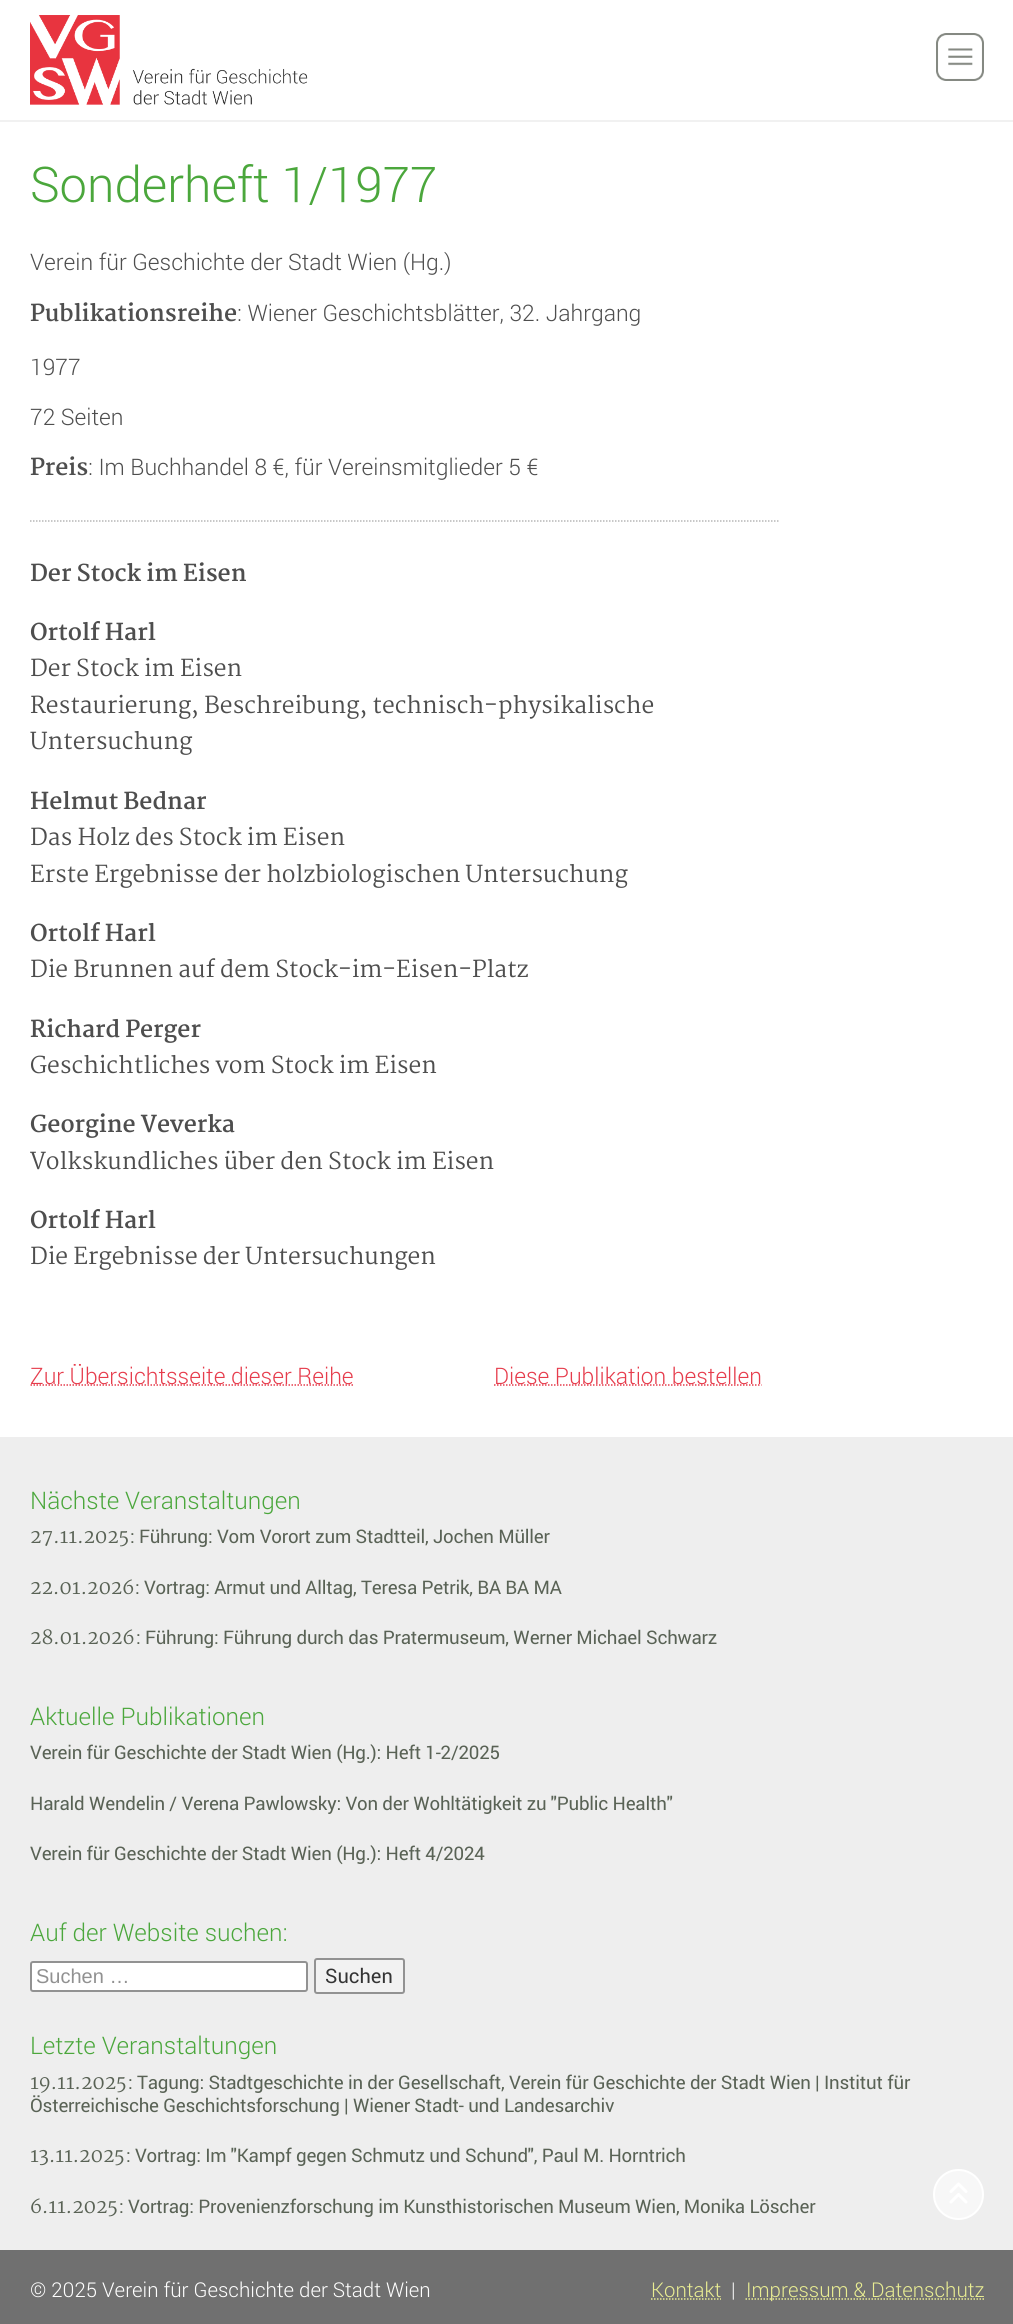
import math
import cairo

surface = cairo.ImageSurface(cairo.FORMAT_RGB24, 1013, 2324)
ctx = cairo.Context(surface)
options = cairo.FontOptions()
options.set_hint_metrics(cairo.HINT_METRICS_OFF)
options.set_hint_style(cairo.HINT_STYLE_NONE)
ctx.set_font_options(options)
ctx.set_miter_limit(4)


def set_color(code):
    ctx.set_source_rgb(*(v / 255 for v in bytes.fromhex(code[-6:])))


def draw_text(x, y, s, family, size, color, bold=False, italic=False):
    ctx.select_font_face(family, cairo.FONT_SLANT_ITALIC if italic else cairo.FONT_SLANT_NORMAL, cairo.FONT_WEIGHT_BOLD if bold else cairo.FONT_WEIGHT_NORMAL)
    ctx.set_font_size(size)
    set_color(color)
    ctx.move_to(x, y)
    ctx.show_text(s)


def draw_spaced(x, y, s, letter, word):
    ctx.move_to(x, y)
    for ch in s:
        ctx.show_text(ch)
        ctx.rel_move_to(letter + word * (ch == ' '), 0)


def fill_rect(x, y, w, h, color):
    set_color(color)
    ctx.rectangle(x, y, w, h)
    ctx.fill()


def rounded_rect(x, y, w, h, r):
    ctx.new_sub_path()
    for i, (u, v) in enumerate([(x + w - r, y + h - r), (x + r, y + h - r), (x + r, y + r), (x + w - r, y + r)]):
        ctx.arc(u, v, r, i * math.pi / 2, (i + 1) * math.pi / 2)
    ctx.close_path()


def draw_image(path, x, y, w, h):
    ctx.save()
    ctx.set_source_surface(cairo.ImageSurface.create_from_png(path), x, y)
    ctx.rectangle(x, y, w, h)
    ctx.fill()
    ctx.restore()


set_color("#ffffff")
ctx.paint()
fill_rect(0, 120, 1013, 2, "#f1f1f1")
draw_image("assets/img1.png", 30, 15, 278, 90)
draw_image("assets/img2.png", 936, 33, 48, 48)
draw_text(30, 202, "Sonderheft 1/1977", "Roboto Light", 49.25, "#4ba73c")
draw_text(30, 270, "Verein für Geschichte der Stadt Wien (Hg.)", "Roboto Light", 22.8, "#4e4e4e")
draw_text(30, 321, "Publikationsreihe", "Martel", 22.8, "#4e4e4e", bold=True)
draw_text(237, 321, ": Wiener Geschichtsblätter, 32. Jahrgang", "Roboto Light", 22.8, "#4e4e4e")
draw_text(30, 375, "1977", "Roboto Light", 22.8, "#4e4e4e")
draw_text(30, 425, "72 Seiten", "Roboto Light", 22.8, "#4e4e4e")
draw_text(30, 475, "Preis", "Martel", 22.8, "#4e4e4e", bold=True)
draw_text(88, 475, ": Im Buchhandel 8 €, für Vereinsmitglieder 5 €", "Roboto Light", 22.8, "#4e4e4e")
ctx.new_path()
ctx.move_to(30, 521)
ctx.line_to(780, 521)
set_color("#b6b6b6")
ctx.set_line_width(1.5)
ctx.set_dash([1.5, 1.5])
ctx.stroke()
draw_text(30, 581, "Der Stock im Eisen", "Martel", 22.8, "#4e4e4e", bold=True)
draw_text(30, 640, "Ortolf Harl", "Martel", 22.8, "#4e4e4e", bold=True)
draw_text(30, 676, "Der Stock im Eisen", "Martel", 22.8, "#4e4e4e")
draw_text(30, 713, "Restaurierung, Beschreibung, technisch-physikalische", "Martel", 22.8, "#4e4e4e")
draw_text(30, 749, "Untersuchung", "Martel", 22.8, "#4e4e4e")
draw_text(30, 809, "Helmut Bednar", "Martel", 22.8, "#4e4e4e", bold=True)
draw_text(30, 845, "Das Holz des Stock im Eisen", "Martel", 22.8, "#4e4e4e")
draw_text(30, 882, "Erste Ergebnisse der holzbiologischen Untersuchung", "Martel", 22.8, "#4e4e4e")
draw_text(30, 941, "Ortolf Harl", "Martel", 22.8, "#4e4e4e", bold=True)
draw_text(30, 977, "Die Brunnen auf dem Stock-im-Eisen-Platz", "Martel", 22.8, "#4e4e4e")
draw_text(30, 1037, "Richard Perger", "Martel", 22.8, "#4e4e4e", bold=True)
draw_text(30, 1073, "Geschichtliches vom Stock im Eisen", "Martel", 22.8, "#4e4e4e")
draw_text(30, 1132, "Georgine Veverka", "Martel", 22.8, "#4e4e4e", bold=True)
draw_text(30, 1169, "Volkskundliches über den Stock im Eisen", "Martel", 22.8, "#4e4e4e")
draw_text(30, 1228, "Ortolf Harl", "Martel", 22.8, "#4e4e4e", bold=True)
draw_text(30, 1264, "Die Ergebnisse der Untersuchungen", "Martel", 22.8, "#4e4e4e")
ctx.new_path()
ctx.move_to(30.5, 1385)
ctx.line_to(354, 1385)
set_color("#e63c4c")
ctx.stroke()
draw_text(30, 1384, "Zur Übersichtsseite dieser Reihe", "Roboto Light", 22.8, "#e63c4c")
ctx.new_path()
ctx.move_to(494, 1385)
ctx.line_to(761.5, 1385)
ctx.stroke()
draw_text(494, 1384, "Diese Publikation bestellen", "Roboto Light", 22.8, "#e63c4c")
fill_rect(0, 1437, 1013, 813, "#eeeeee")
draw_text(30, 1509, "Nächste Veranstaltungen", "Roboto Light", 24.25, "#4ba73c")
ctx.select_font_face("Martel")
ctx.set_font_size(19.5)
set_color("#596255")
draw_spaced(30, 1543, "27.11.2025", -0.2, 0)
ctx.select_font_face("Roboto")
ctx.set_font_size(18.7)
draw_spaced(130, 1543, ": Führung: Vom Vorort zum Stadtteil, Jochen Müller", -0.2, 0)
ctx.select_font_face("Martel")
ctx.set_font_size(19.5)
draw_spaced(30, 1594, "22.01.2026", -0.2, 0)
ctx.select_font_face("Roboto")
ctx.set_font_size(18.7)
draw_spaced(135, 1594, ": Vortrag: Armut und Alltag, Teresa Petrik, BA BA MA", -0.2, 0)
ctx.select_font_face("Martel")
ctx.set_font_size(19.5)
draw_spaced(30, 1644, "28.01.2026", -0.2, 0)
ctx.select_font_face("Roboto")
ctx.set_font_size(18.7)
draw_spaced(136, 1644, ": Führung: Führung durch das Pratermuseum, Werner Michael Schwarz", -0.2, 0)
draw_text(30, 1725, "Aktuelle Publikationen", "Roboto Light", 24.25, "#4ba73c")
ctx.select_font_face("Roboto")
ctx.set_font_size(18.7)
set_color("#596255")
draw_spaced(30, 1759, "Verein für Geschichte der Stadt Wien (Hg.): Heft 1-2/2025", -0.2, 0)
draw_spaced(30, 1810, "Harald Wendelin / Verena Pawlowsky: Von der Wohltätigkeit zu \"Public Health\"", -0.2, 0)
draw_spaced(30, 1860, "Verein für Geschichte der Stadt Wien (Hg.): Heft 4/2024", -0.2, 0)
draw_text(30, 1941, "Auf der Website suchen:", "Roboto Light", 24.25, "#4ba73c")
set_color("#ffffff")
rounded_rect(31, 1962, 276, 29, 2)
ctx.fill_preserve()
set_color("#929292")
ctx.set_line_width(2)
ctx.set_dash([])
ctx.stroke()
draw_text(36, 1983, "Suchen …", "Liberation Sans", 20, "#919191")
set_color("#f2f2f2")
rounded_rect(315, 1959, 89, 34, 2)
ctx.fill_preserve()
set_color("#929292")
ctx.stroke()
draw_text(325, 1983, "Suchen", "Roboto", 20, "#343434")
draw_text(30, 2054, "Letzte Veranstaltungen", "Roboto Light", 24.25, "#4ba73c")
ctx.select_font_face("Martel")
ctx.set_font_size(19.5)
set_color("#596255")
draw_spaced(30, 2089, "19.11.2025", -0.2, 0)
ctx.select_font_face("Roboto")
ctx.set_font_size(18.7)
draw_spaced(128, 2089, ": Tagung: Stadtgeschichte in der Gesellschaft, Verein für Geschichte der Stadt Wien | Institut für", -0.2, 0)
draw_spaced(30, 2112, "Österreichische Geschichtsforschung | Wiener Stadt- und Landesarchiv", -0.2, 0)
ctx.select_font_face("Martel")
ctx.set_font_size(19.5)
draw_spaced(30, 2162, "13.11.2025", -0.2, 0)
ctx.select_font_face("Roboto")
ctx.set_font_size(18.7)
draw_spaced(126, 2162, ": Vortrag: Im \"Kampf gegen Schmutz und Schund\", Paul M. Horntrich", -0.2, 0)
ctx.select_font_face("Martel")
ctx.set_font_size(19.5)
draw_spaced(30, 2213, "6.11.2025", -0.2, 0)
ctx.select_font_face("Roboto")
ctx.set_font_size(18.7)
draw_spaced(119, 2213, ": Vortrag: Provenienzforschung im Kunsthistorischen Museum Wien, Monika Löscher", -0.2, 0)
fill_rect(0, 2250, 1013, 74, "#707070")
draw_text(30, 2297, "© 2025 Verein für Geschichte der Stadt Wien", "Roboto Light", 20.4, "#ffffff")
draw_text(651, 2297, "Kontakt", "Roboto Light", 20.4, "#e9ed93")
ctx.new_path()
ctx.move_to(651, 2299)
ctx.line_to(721, 2299)
ctx.set_line_width(1.5)
ctx.set_dash([1.5, 1.5])
ctx.stroke()
draw_text(731, 2297, "|", "Roboto Light", 20.4, "#ffffff")
ctx.new_path()
ctx.move_to(745.5, 2299)
ctx.line_to(984, 2299)
set_color("#e9ed93")
ctx.stroke()
draw_text(746, 2297, "Impressum & Datenschutz", "Roboto Light", 20.4, "#e9ed93")
set_color("#f7f7f7")
ctx.new_path()
ctx.arc(958.5, 2194.5, 24.5, 0, 2 * math.pi)
ctx.fill_preserve()
set_color("#ffffff")
ctx.set_line_width(2)
ctx.set_dash([])
ctx.stroke()
ctx.new_path()
ctx.move_to(966, 2191.5)
ctx.line_to(958.5, 2184)
ctx.line_to(951, 2191.5)
ctx.move_to(966, 2202)
ctx.line_to(958.5, 2194.5)
ctx.line_to(951, 2202)
ctx.set_line_width(3)
ctx.set_line_cap(cairo.LINE_CAP_ROUND)
ctx.set_line_join(cairo.LINE_JOIN_ROUND)
ctx.stroke()
surface.write_to_png("output.png")
